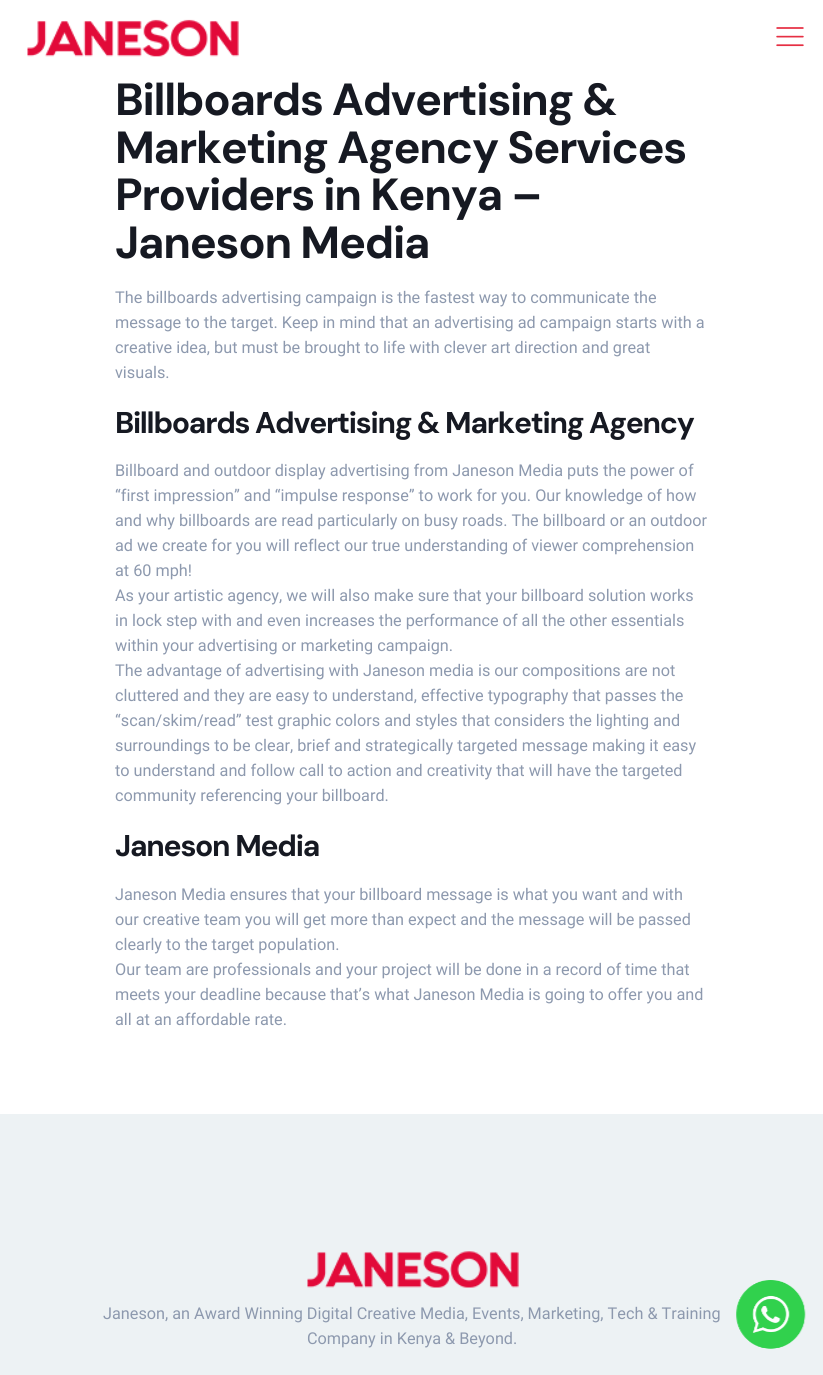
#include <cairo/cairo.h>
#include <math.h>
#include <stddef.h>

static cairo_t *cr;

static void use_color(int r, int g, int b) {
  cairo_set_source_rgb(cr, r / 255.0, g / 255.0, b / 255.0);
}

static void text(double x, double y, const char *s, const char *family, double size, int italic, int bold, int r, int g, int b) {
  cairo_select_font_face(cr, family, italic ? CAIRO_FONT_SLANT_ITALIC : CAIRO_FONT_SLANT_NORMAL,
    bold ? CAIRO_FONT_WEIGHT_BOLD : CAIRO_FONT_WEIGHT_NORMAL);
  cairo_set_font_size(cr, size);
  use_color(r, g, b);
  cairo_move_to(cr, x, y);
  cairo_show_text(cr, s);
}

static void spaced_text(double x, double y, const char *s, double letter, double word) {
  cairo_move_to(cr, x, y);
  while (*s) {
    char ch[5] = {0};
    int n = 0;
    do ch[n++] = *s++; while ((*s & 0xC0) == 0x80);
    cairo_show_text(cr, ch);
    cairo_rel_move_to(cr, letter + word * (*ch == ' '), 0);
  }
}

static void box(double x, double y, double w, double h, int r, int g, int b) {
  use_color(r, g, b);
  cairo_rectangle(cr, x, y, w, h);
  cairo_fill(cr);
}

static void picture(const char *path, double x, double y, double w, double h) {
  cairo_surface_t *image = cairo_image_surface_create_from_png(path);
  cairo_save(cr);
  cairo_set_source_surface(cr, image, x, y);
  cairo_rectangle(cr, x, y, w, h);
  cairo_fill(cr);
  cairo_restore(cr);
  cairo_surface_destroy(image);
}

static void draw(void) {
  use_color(255, 255, 255);
  cairo_paint(cr);
  picture("img_01.png", 27, 19, 212, 38);
  picture("img_02.png", 776, 27, 28, 20);
  box(0, 1114, 823, 261, 237, 242, 244);
  picture("img_03.png", 307, 1251, 212, 37);
  picture("img_04.png", 736, 1280, 70, 69);
  cairo_select_font_face(cr, "DM Sans", CAIRO_FONT_SLANT_NORMAL, CAIRO_FONT_WEIGHT_BOLD);
  cairo_set_font_size(cr, 45);
  use_color(22, 25, 34);
  spaced_text(115, 115, "Billboards Advertising &", -1.25, 0);
  spaced_text(115, 163, "Marketing Agency Services", -1.25, 0);
  spaced_text(115, 210, "Providers in Kenya –", -1.25, 0);
  spaced_text(115, 258, "Janeson Media", -1.25, 0);
  text(115, 303, "The billboards advertising campaign is the fastest way to communicate the", "Roboto", 16.25, 0, 0, 141, 153, 174);
  text(115, 328, "message to the target. Keep in mind that an advertising ad campaign starts with a", "Roboto", 16.25, 0, 0, 141, 153, 174);
  text(115, 353, "creative idea, but must be brought to life with clever art direction and great", "Roboto", 16.25, 0, 0, 141, 153, 174);
  text(115, 378, "visuals.", "Roboto", 16.25, 0, 0, 141, 153, 174);
  cairo_select_font_face(cr, "DM Sans", CAIRO_FONT_SLANT_NORMAL, CAIRO_FONT_WEIGHT_BOLD);
  cairo_set_font_size(cr, 30);
  use_color(22, 25, 34);
  spaced_text(115, 433, "Billboards Advertising & Marketing Agency", -1.25, 0);
  text(115, 476, "Billboard and outdoor display advertising from Janeson Media puts the power of", "Roboto", 16.25, 0, 0, 141, 153, 174);
  text(115, 501, "“first impression” and “impulse response” to work for you. Our knowledge of how", "Roboto", 16.25, 0, 0, 141, 153, 174);
  text(115, 526, "and why billboards are read particularly on busy roads. The billboard or an outdoor", "Roboto", 16.25, 0, 0, 141, 153, 174);
  text(115, 551, "ad we create for you will reflect our true understanding of viewer comprehension", "Roboto", 16.25, 0, 0, 141, 153, 174);
  text(115, 576, "at 60 mph!", "Roboto", 16.25, 0, 0, 141, 153, 174);
  text(115, 601, "As your artistic agency, we will also make sure that your billboard solution works", "Roboto", 16.25, 0, 0, 141, 153, 174);
  text(115, 626, "in lock step with and even increases the performance of all the other essentials", "Roboto", 16.25, 0, 0, 141, 153, 174);
  text(115, 651, "within your advertising or marketing campaign.", "Roboto", 16.25, 0, 0, 141, 153, 174);
  text(115, 676, "The advantage of advertising with Janeson media is our compositions are not", "Roboto", 16.25, 0, 0, 141, 153, 174);
  text(115, 701, "cluttered and they are easy to understand, effective typography that passes the", "Roboto", 16.25, 0, 0, 141, 153, 174);
  text(115, 726, "“scan/skim/read” test graphic colors and styles that considers the lighting and", "Roboto", 16.25, 0, 0, 141, 153, 174);
  text(115, 751, "surroundings to be clear, brief and strategically targeted message making it easy", "Roboto", 16.25, 0, 0, 141, 153, 174);
  text(115, 776, "to understand and follow call to action and creativity that will have the targeted", "Roboto", 16.25, 0, 0, 141, 153, 174);
  text(115, 801, "community referencing your billboard.", "Roboto", 16.25, 0, 0, 141, 153, 174);
  cairo_select_font_face(cr, "DM Sans", CAIRO_FONT_SLANT_NORMAL, CAIRO_FONT_WEIGHT_BOLD);
  cairo_set_font_size(cr, 30);
  use_color(22, 25, 34);
  spaced_text(115, 856, "Janeson Media", -1.25, 0);
  text(115, 900, "Janeson Media ensures that your billboard message is what you want and with", "Roboto", 16.25, 0, 0, 141, 153, 174);
  text(115, 925, "our creative team you will get more than expect and the message will be passed", "Roboto", 16.25, 0, 0, 141, 153, 174);
  text(115, 950, "clearly to the target population.", "Roboto", 16.25, 0, 0, 141, 153, 174);
  text(115, 975, "Our team are professionals and your project will be done in a record of time that", "Roboto", 16.25, 0, 0, 141, 153, 174);
  text(115, 1000, "meets your deadline because that’s what Janeson Media is going to offer you and", "Roboto", 16.25, 0, 0, 141, 153, 174);
  text(115, 1025, "all at an affordable rate.", "Roboto", 16.25, 0, 0, 141, 153, 174);
  text(103, 1319, "Janeson, an Award Winning Digital Creative Media, Events, Marketing, Tech & Training", "Roboto", 16.25, 0, 0, 141, 153, 174);
  text(307, 1344, "Company in Kenya & Beyond.", "Roboto", 16.25, 0, 0, 141, 153, 174);
}

int main(void) {
  cairo_surface_t *surface = cairo_image_surface_create(CAIRO_FORMAT_RGB24, 823, 1375);
  cr = cairo_create(surface);
  cairo_font_options_t *options = cairo_font_options_create();
  cairo_font_options_set_hint_metrics(options, CAIRO_HINT_METRICS_OFF);
  cairo_font_options_set_hint_style(options, CAIRO_HINT_STYLE_NONE);
  cairo_set_font_options(cr, options);
  cairo_set_miter_limit(cr, 4);
  draw();
  cairo_surface_write_to_png(surface, "out.png");
  cairo_font_options_destroy(options);
  cairo_destroy(cr);
  cairo_surface_destroy(surface);
  return 0;
}
